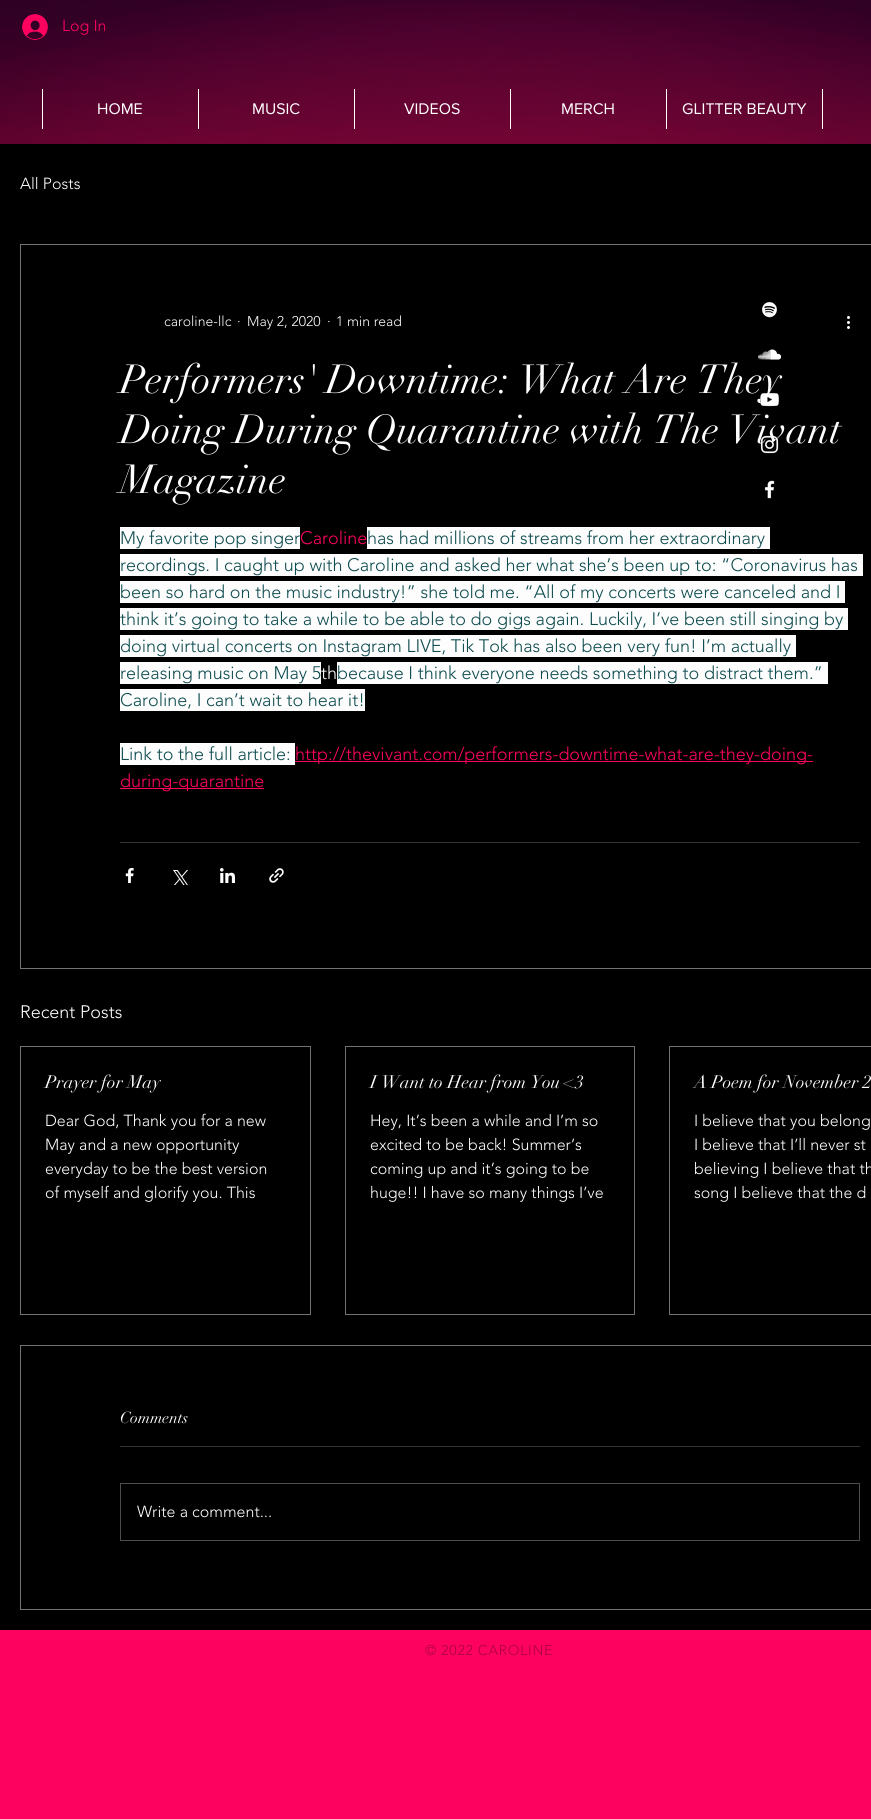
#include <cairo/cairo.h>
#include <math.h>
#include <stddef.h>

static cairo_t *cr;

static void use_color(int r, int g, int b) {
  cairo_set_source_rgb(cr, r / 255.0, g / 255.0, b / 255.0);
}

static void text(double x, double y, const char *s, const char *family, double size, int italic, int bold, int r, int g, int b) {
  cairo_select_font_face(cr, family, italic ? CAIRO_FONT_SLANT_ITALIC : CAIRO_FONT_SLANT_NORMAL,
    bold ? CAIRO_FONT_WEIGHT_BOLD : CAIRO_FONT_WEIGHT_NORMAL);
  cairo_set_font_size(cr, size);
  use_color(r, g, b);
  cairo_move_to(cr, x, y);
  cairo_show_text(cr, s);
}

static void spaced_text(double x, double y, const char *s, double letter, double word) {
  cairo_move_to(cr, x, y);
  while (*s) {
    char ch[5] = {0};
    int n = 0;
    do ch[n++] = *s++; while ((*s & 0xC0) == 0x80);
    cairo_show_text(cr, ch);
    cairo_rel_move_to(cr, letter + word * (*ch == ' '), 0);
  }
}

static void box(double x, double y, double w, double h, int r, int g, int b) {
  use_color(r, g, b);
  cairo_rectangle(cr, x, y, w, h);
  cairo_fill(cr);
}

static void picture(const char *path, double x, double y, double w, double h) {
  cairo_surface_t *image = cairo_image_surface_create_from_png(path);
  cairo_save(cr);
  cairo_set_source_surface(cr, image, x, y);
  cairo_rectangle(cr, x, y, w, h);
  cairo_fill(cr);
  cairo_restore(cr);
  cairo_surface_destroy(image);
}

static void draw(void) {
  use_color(254, 2, 96);
  cairo_paint(cr);
  picture("img_01.png", 0, 0, 871, 144);
  picture("img_02.png", 22, 14, 26, 26);
  box(42, 89, 1, 40, 255, 255, 255);
  box(198, 89, 1, 40, 255, 255, 255);
  box(354, 89, 1, 40, 255, 255, 255);
  box(510, 89, 1, 40, 255, 255, 255);
  box(666, 89, 1, 40, 255, 255, 255);
  box(822, 89, 1, 40, 255, 255, 255);
  box(0, 144, 871, 1486, 0, 0, 0);
  cairo_rectangle(cr, 20.5, 244.5, 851, 724);
  use_color(115, 115, 113);
  cairo_set_line_width(cr, 1);
  cairo_stroke(cr);
  picture("img_03.png", 847, 316, 3, 13);
  box(120, 527, 180, 22, 253, 253, 253);
  box(367, 527, 403, 22, 253, 253, 253);
  box(120, 554, 743, 22, 253, 253, 253);
  box(120, 581, 725, 22, 253, 253, 253);
  box(120, 608, 728, 22, 253, 253, 253);
  box(120, 635, 676, 22, 253, 253, 253);
  box(120, 662, 201, 22, 253, 253, 253);
  box(337, 662, 491, 22, 253, 253, 253);
  box(120, 689, 245, 22, 253, 253, 253);
  box(120, 743, 175, 22, 253, 253, 253);
  box(295, 761, 518, 1, 254, 2, 96);
  box(120, 788, 144, 1, 254, 2, 96);
  box(120, 842, 740, 1, 51, 51, 51);
  picture("img_04.png", 125, 868, 9, 15);
  picture("img_05.png", 173, 870, 15, 15);
  picture("img_06.png", 220, 868, 15, 15);
  picture("img_07.png", 269, 868, 15, 15);
  cairo_rectangle(cr, 20.5, 1046.5, 290, 268);
  use_color(115, 115, 113);
  cairo_stroke(cr);
  cairo_rectangle(cr, 345.5, 1046.5, 289, 268);
  cairo_stroke(cr);
  cairo_rectangle(cr, 669.5, 1046.5, 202, 268);
  cairo_stroke(cr);
  cairo_rectangle(cr, 20.5, 1345.5, 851, 264);
  cairo_stroke(cr);
  box(120, 1446, 740, 1, 51, 51, 51);
  cairo_rectangle(cr, 120.5, 1483.5, 739, 57);
  use_color(77, 77, 77);
  cairo_stroke(cr);
  picture("img_08.png", 762, 302, 15, 16);
  picture("img_09.png", 758, 349, 23, 11);
  picture("img_12.png", 764, 480, 11, 19);
  text(62, 31, "Log In", "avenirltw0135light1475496 Light", 16, 0, 0, 254, 2, 96);
  text(97, 114, "HOME", "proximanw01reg", 16, 0, 0, 255, 255, 255);
  text(252, 114, "MUSIC", "proximanw01reg", 16, 0, 0, 255, 255, 255);
  text(404, 114, "VIDEOS", "proximanw01reg", 16, 0, 0, 255, 255, 255);
  text(561, 114, "MERCH", "proximanw01reg", 16, 0, 0, 255, 255, 255);
  text(682, 114, "GLITTER BEAUTY", "proximanw01reg", 16, 0, 0, 255, 255, 255);
  text(20, 189, "All Posts", "avenirltw0135light1475496 Light", 16, 0, 0, 255, 255, 255);
  text(164, 326, "caroline-llc", "avenirltw0135light1475496 Light", 14, 0, 0, 255, 255, 255);
  text(237, 326, "·", "avenirltw0135light1475496 Light", 14, 0, 0, 255, 255, 255);
  text(247, 326, "May 2, 2020", "avenirltw0135light1475496 Light", 14, 0, 0, 255, 255, 255);
  text(327, 326, "·", "avenirltw0135light1475496 Light", 14, 0, 0, 255, 255, 255);
  text(336, 326, "1 min read", "avenirltw0135light1475496 Light", 14, 0, 0, 255, 255, 255);
  text(120, 393, "Performers' Downtime: What Are They", "didot", 40, 0, 0, 255, 255, 255);
  text(120, 443, "Doing During Quarantine with The Vivant", "didot", 40, 0, 0, 255, 255, 255);
  text(120, 493, "Magazine", "didot", 40, 0, 0, 255, 255, 255);
  text(120, 544, "My favorite pop singer", "avenirltw0135light1475496 Light", 18, 0, 0, 14, 76, 79);
  text(300, 544, "Caroline", "avenirltw0135light1475496 Light", 18, 0, 0, 254, 2, 96);
  text(367, 544, "has had millions of streams from her extraordinary", "avenirltw0135light1475496 Light", 18, 0, 0, 14, 76, 79);
  text(120, 571, "recordings. I caught up with Caroline and asked her what she’s been up to: “Coronavirus has", "avenirltw0135light1475496 Light", 18, 0, 0, 14, 76, 79);
  text(120, 598, "been so hard on the music industry!” she told me. “All of my concerts were canceled and I", "avenirltw0135light1475496 Light", 18, 0, 0, 14, 76, 79);
  text(120, 625, "think it’s going to take a while to be able to do gigs again. Luckily, I’ve been still singing by", "avenirltw0135light1475496 Light", 18, 0, 0, 14, 76, 79);
  text(120, 652, "doing virtual concerts on Instagram LIVE, Tik Tok has also been very fun! I’m actually", "avenirltw0135light1475496 Light", 18, 0, 0, 14, 76, 79);
  text(120, 679, "releasing music on May 5", "avenirltw0135light1475496 Light", 18, 0, 0, 14, 76, 79);
  text(321, 679, "th", "avenirltw0135light1475496 Light", 18, 0, 0, 255, 255, 255);
  text(337, 679, "because I think everyone needs something to distract them.”", "avenirltw0135light1475496 Light", 18, 0, 0, 14, 76, 79);
  text(120, 706, "Caroline, I can’t wait to hear it!", "avenirltw0135light1475496 Light", 18, 0, 0, 14, 76, 79);
  text(120, 760, "Link to the full article:", "avenirltw0135light1475496 Light", 18, 0, 0, 14, 76, 79);
  text(295, 760, "http://thevivant.com/performers-downtime-what-are-they-doing-", "avenirltw0135light1475496 Light", 18, 0, 0, 254, 2, 96);
  text(120, 787, "during-quarantine", "avenirltw0135light1475496 Light", 18, 0, 0, 254, 2, 96);
  text(20, 1018, "Recent Posts", "avenirltw0135light1475496 Light", 18, 0, 0, 255, 255, 255);
  text(45, 1088, "Prayer for May", "didot", 18, 0, 0, 255, 255, 255);
  text(45, 1126, "Dear God, Thank you for a new", "avenirltw0135light1475496 Light", 16, 0, 0, 255, 255, 255);
  text(45, 1150, "May and a new opportunity", "avenirltw0135light1475496 Light", 16, 0, 0, 255, 255, 255);
  text(45, 1174, "everyday to be the best version", "avenirltw0135light1475496 Light", 16, 0, 0, 255, 255, 255);
  text(45, 1198, "of myself and glorify you. This", "avenirltw0135light1475496 Light", 16, 0, 0, 255, 255, 255);
  text(370, 1088, "I Want to Hear from You <3", "didot", 18, 0, 0, 255, 255, 255);
  text(370, 1126, "Hey, It’s been a while and I’m so", "avenirltw0135light1475496 Light", 16, 0, 0, 255, 255, 255);
  text(370, 1150, "excited to be back! Summer’s", "avenirltw0135light1475496 Light", 16, 0, 0, 255, 255, 255);
  text(370, 1174, "coming up and it’s going to be", "avenirltw0135light1475496 Light", 16, 0, 0, 255, 255, 255);
  text(370, 1198, "huge!! I have so many things I’ve", "avenirltw0135light1475496 Light", 16, 0, 0, 255, 255, 255);
  text(694, 1088, "A Poem for November 2", "didot", 18, 0, 0, 255, 255, 255);
  text(694, 1126, "I believe that you belong", "avenirltw0135light1475496 Light", 16, 0, 0, 255, 255, 255);
  text(694, 1150, "I believe that I’ll never st", "avenirltw0135light1475496 Light", 16, 0, 0, 255, 255, 255);
  text(694, 1174, "believing I believe that th", "avenirltw0135light1475496 Light", 16, 0, 0, 255, 255, 255);
  text(694, 1198, "song I believe that the d", "avenirltw0135light1475496 Light", 16, 0, 0, 255, 255, 255);
  text(120, 1423, "Comments", "didot", 16, 0, 0, 255, 255, 255);
  text(137, 1517, "Write a comment...", "avenirltw0135light1475496 Light", 16, 0, 0, 255, 255, 255);
  picture("img_10.png", 760, 393, 19, 14);
  picture("img_11.png", 760, 435, 19, 19);
  cairo_set_font_size(cr, 14);
  use_color(169, 1, 64);
  spaced_text(425, 1655, "© 2022 CAROLINE", 0.75, 0);
}

int main(void) {
  cairo_surface_t *surface = cairo_image_surface_create(CAIRO_FORMAT_RGB24, 871, 1819);
  cr = cairo_create(surface);
  cairo_font_options_t *options = cairo_font_options_create();
  cairo_font_options_set_hint_metrics(options, CAIRO_HINT_METRICS_OFF);
  cairo_font_options_set_hint_style(options, CAIRO_HINT_STYLE_NONE);
  cairo_set_font_options(cr, options);
  cairo_set_miter_limit(cr, 4);
  draw();
  cairo_surface_write_to_png(surface, "out.png");
  cairo_font_options_destroy(options);
  cairo_destroy(cr);
  cairo_surface_destroy(surface);
  return 0;
}
